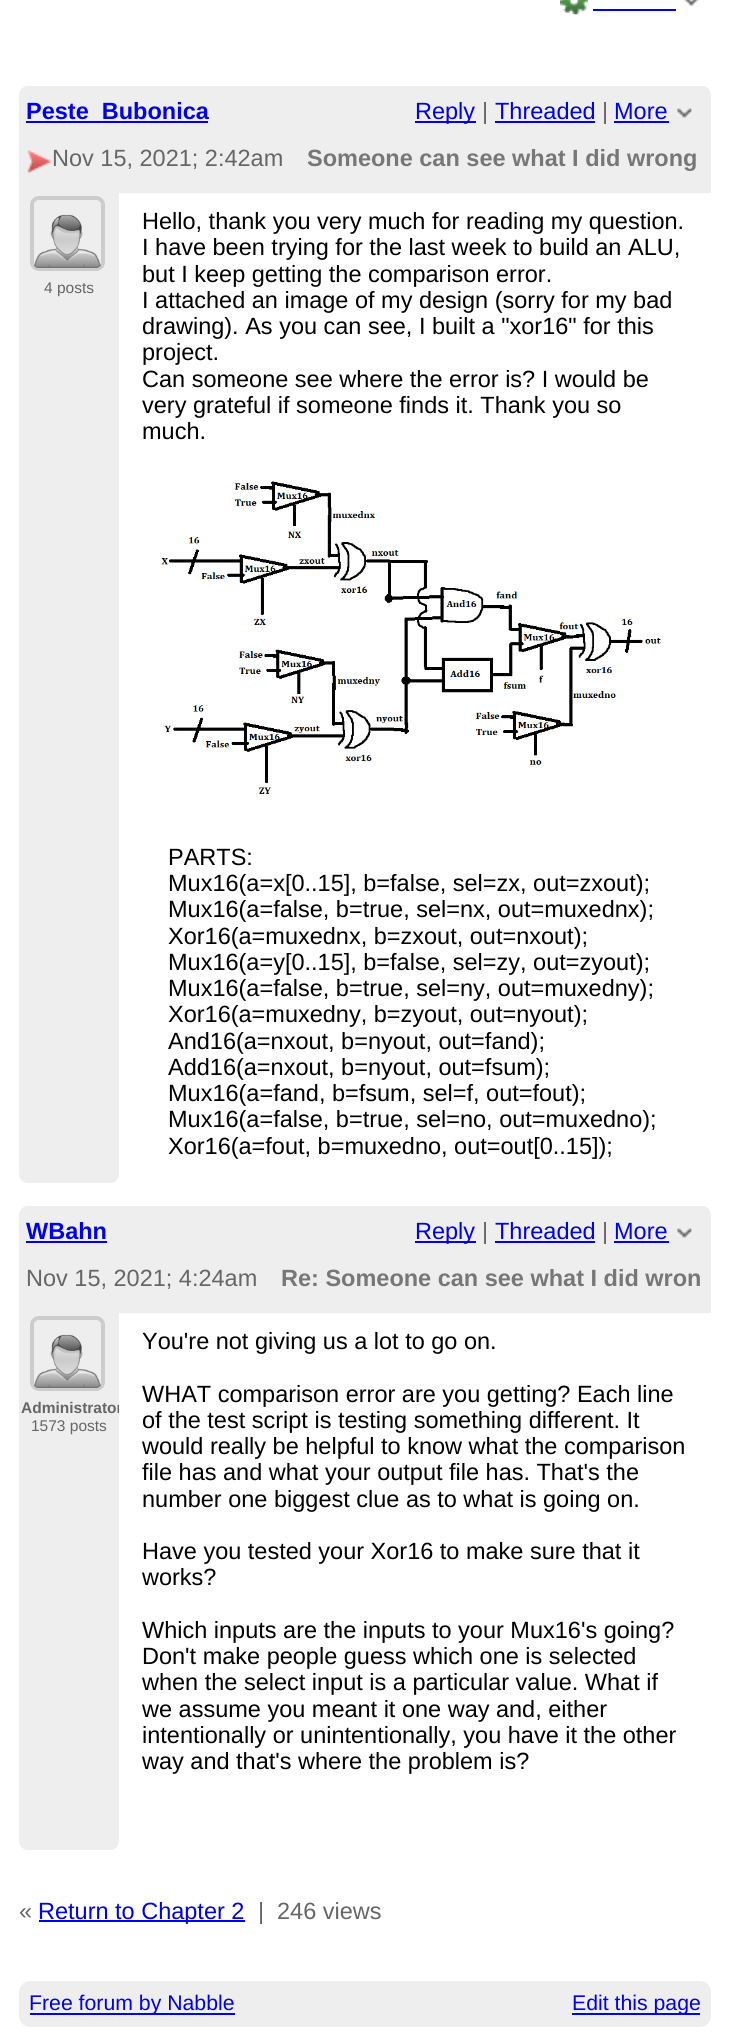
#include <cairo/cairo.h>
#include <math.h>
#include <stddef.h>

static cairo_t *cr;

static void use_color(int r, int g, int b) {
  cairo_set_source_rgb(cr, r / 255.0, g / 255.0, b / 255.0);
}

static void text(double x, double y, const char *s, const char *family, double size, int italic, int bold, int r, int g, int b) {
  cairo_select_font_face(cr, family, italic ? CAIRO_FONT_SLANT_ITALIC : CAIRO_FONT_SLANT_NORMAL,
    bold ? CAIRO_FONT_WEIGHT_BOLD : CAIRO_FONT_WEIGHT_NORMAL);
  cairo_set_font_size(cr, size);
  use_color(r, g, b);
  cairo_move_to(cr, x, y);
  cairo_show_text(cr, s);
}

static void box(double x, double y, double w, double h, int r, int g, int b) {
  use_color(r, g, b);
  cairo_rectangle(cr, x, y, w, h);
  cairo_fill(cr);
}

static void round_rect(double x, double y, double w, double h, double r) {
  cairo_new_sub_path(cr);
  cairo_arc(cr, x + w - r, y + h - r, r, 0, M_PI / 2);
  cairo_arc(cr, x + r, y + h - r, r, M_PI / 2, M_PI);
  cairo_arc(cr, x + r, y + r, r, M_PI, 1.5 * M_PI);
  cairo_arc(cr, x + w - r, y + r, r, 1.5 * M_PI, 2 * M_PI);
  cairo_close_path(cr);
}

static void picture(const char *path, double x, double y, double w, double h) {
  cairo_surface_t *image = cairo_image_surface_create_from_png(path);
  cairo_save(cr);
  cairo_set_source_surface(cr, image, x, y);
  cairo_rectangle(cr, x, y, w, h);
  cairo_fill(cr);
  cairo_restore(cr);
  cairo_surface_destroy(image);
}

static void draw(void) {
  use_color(255, 255, 255);
  cairo_paint(cr);
  picture("img_01.png", 560, 0, 28, 15);
  picture("img_02.png", 684, 0, 15, 6);
  box(593, 9, 83, 2, 0, 0, 238);
  use_color(238, 238, 238);
  cairo_new_path(cr);
  cairo_move_to(cr, 28, 86);
  cairo_line_to(cr, 702, 86);
  cairo_curve_to(cr, 707, 86, 711, 90, 711, 95);
  cairo_line_to(cr, 711, 193);
  cairo_line_to(cr, 19, 193);
  cairo_line_to(cr, 19, 95);
  cairo_curve_to(cr, 19, 90, 23, 86, 28, 86);
  cairo_close_path(cr);
  cairo_fill(cr);
  box(26, 121, 182, 2, 0, 0, 238);
  box(415, 121, 61, 2, 0, 0, 238);
  box(495, 121, 100, 2, 0, 0, 238);
  box(614, 121, 55, 2, 0, 0, 238);
  picture("img_03.png", 677, 108, 16, 11);
  picture("img_04.png", 27, 150, 25, 24);
  use_color(238, 238, 238);
  cairo_new_path(cr);
  cairo_move_to(cr, 19, 186);
  cairo_line_to(cr, 119, 186);
  cairo_line_to(cr, 119, 1174);
  cairo_curve_to(cr, 119, 1179, 115, 1183, 110, 1183);
  cairo_line_to(cr, 28, 1183);
  cairo_curve_to(cr, 23, 1183, 19, 1179, 19, 1174);
  cairo_close_path(cr);
  cairo_fill(cr);
  round_rect(32, 198, 71, 71, 7);
  use_color(204, 204, 204);
  cairo_set_line_width(cr, 4);
  cairo_stroke(cr);
  picture("img_05.png", 34, 214, 67, 54);
  picture("img_06.png", 161, 481, 500, 313);
  use_color(238, 238, 238);
  cairo_new_path(cr);
  cairo_move_to(cr, 28, 1206);
  cairo_line_to(cr, 702, 1206);
  cairo_curve_to(cr, 707, 1206, 711, 1210, 711, 1215);
  cairo_line_to(cr, 711, 1313);
  cairo_line_to(cr, 19, 1313);
  cairo_line_to(cr, 19, 1215);
  cairo_curve_to(cr, 19, 1210, 23, 1206, 28, 1206);
  cairo_close_path(cr);
  cairo_fill(cr);
  box(26, 1241, 81, 2, 0, 0, 238);
  box(415, 1241, 61, 2, 0, 0, 238);
  box(495, 1241, 100, 2, 0, 0, 238);
  box(614, 1241, 55, 2, 0, 0, 238);
  picture("img_03.png", 677, 1228, 16, 11);
  use_color(238, 238, 238);
  cairo_new_path(cr);
  cairo_move_to(cr, 19, 1306);
  cairo_line_to(cr, 119, 1306);
  cairo_line_to(cr, 119, 1841);
  cairo_curve_to(cr, 119, 1846, 115, 1850, 110, 1850);
  cairo_line_to(cr, 28, 1850);
  cairo_curve_to(cr, 23, 1850, 19, 1846, 19, 1841);
  cairo_close_path(cr);
  cairo_fill(cr);
  round_rect(32, 1318, 71, 71, 7);
  use_color(204, 204, 204);
  cairo_stroke(cr);
  picture("img_05.png", 34, 1334, 67, 54);
  box(39, 1920, 206, 2, 0, 0, 238);
  use_color(238, 238, 238);
  round_rect(19, 1981, 692, 46, 11);
  cairo_fill(cr);
  box(30, 2013, 205, 2, 0, 0, 238);
  box(572, 2013, 128, 2, 0, 0, 238);
  text(26, 119, "Peste_Bubonica", "Liberation Sans", 23.5, 0, 1, 0, 0, 238);
  text(415, 119, "Reply", "Liberation Sans", 23.5, 0, 0, 0, 0, 238);
  text(482, 119, "|", "Liberation Sans", 23.5, 0, 0, 102, 102, 102);
  text(495, 119, "Threaded", "Liberation Sans", 23.5, 0, 0, 0, 0, 238);
  text(602, 119, "|", "Liberation Sans", 23.5, 0, 0, 102, 102, 102);
  text(614, 119, "More", "Liberation Sans", 23.5, 0, 0, 0, 0, 238);
  text(52, 166, "Nov 15, 2021; 2:42am", "Liberation Sans", 23.5, 0, 0, 102, 102, 102);
  text(307, 166, "Someone can see what I did wrong", "Liberation Sans", 23.5, 0, 1, 119, 119, 119);
  text(44, 293, "4 posts", "Liberation Sans", 15.5, 0, 0, 102, 102, 102);
  text(142, 229, "Hello, thank you very much for reading my question.", "Liberation Sans", 23.5, 0, 0, 0, 0, 0);
  text(142, 255, "I have been trying for the last week to build an ALU,", "Liberation Sans", 23.5, 0, 0, 0, 0, 0);
  text(142, 282, "but I keep getting the comparison error.", "Liberation Sans", 23.5, 0, 0, 0, 0, 0);
  text(142, 308, "I attached an image of my design (sorry for my bad", "Liberation Sans", 23.5, 0, 0, 0, 0, 0);
  text(142, 334, "drawing). As you can see, I built a \"xor16\" for this", "Liberation Sans", 23.5, 0, 0, 0, 0, 0);
  text(142, 360, "project.", "Liberation Sans", 23.5, 0, 0, 0, 0, 0);
  text(142, 387, "Can someone see where the error is? I would be", "Liberation Sans", 23.5, 0, 0, 0, 0, 0);
  text(142, 413, "very grateful if someone finds it. Thank you so", "Liberation Sans", 23.5, 0, 0, 0, 0, 0);
  text(142, 439, "much.", "Liberation Sans", 23.5, 0, 0, 0, 0, 0);
  text(168, 865, "PARTS:", "Liberation Sans", 23.5, 0, 0, 0, 0, 0);
  text(168, 891, "Mux16(a=x[0..15], b=false, sel=zx, out=zxout);", "Liberation Sans", 23.5, 0, 0, 0, 0, 0);
  text(168, 917, "Mux16(a=false, b=true, sel=nx, out=muxednx);", "Liberation Sans", 23.5, 0, 0, 0, 0, 0);
  text(168, 944, "Xor16(a=muxednx, b=zxout, out=nxout);", "Liberation Sans", 23.5, 0, 0, 0, 0, 0);
  text(168, 970, "Mux16(a=y[0..15], b=false, sel=zy, out=zyout);", "Liberation Sans", 23.5, 0, 0, 0, 0, 0);
  text(168, 996, "Mux16(a=false, b=true, sel=ny, out=muxedny);", "Liberation Sans", 23.5, 0, 0, 0, 0, 0);
  text(168, 1022, "Xor16(a=muxedny, b=zyout, out=nyout);", "Liberation Sans", 23.5, 0, 0, 0, 0, 0);
  text(168, 1049, "And16(a=nxout, b=nyout, out=fand);", "Liberation Sans", 23.5, 0, 0, 0, 0, 0);
  text(168, 1075, "Add16(a=nxout, b=nyout, out=fsum);", "Liberation Sans", 23.5, 0, 0, 0, 0, 0);
  text(168, 1101, "Mux16(a=fand, b=fsum, sel=f, out=fout);", "Liberation Sans", 23.5, 0, 0, 0, 0, 0);
  text(168, 1127, "Mux16(a=false, b=true, sel=no, out=muxedno);", "Liberation Sans", 23.5, 0, 0, 0, 0, 0);
  text(168, 1154, "Xor16(a=fout, b=muxedno, out=out[0..15]);", "Liberation Sans", 23.5, 0, 0, 0, 0, 0);
  text(26, 1239, "WBahn", "Liberation Sans", 23.5, 0, 1, 0, 0, 238);
  text(415, 1239, "Reply", "Liberation Sans", 23.5, 0, 0, 0, 0, 238);
  text(482, 1239, "|", "Liberation Sans", 23.5, 0, 0, 102, 102, 102);
  text(495, 1239, "Threaded", "Liberation Sans", 23.5, 0, 0, 0, 0, 238);
  text(602, 1239, "|", "Liberation Sans", 23.5, 0, 0, 102, 102, 102);
  text(614, 1239, "More", "Liberation Sans", 23.5, 0, 0, 0, 0, 238);
  text(26, 1286, "Nov 15, 2021; 4:24am", "Liberation Sans", 23.5, 0, 0, 102, 102, 102);
  text(281, 1286, "Re: Someone can see what I did wron", "Liberation Sans", 23.5, 0, 1, 119, 119, 119);
  cairo_save(cr);
  cairo_new_path(cr);
  cairo_move_to(cr, 19, 1306);
  cairo_line_to(cr, 119, 1306);
  cairo_line_to(cr, 119, 1841);
  cairo_curve_to(cr, 119, 1846, 115, 1850, 110, 1850);
  cairo_line_to(cr, 28, 1850);
  cairo_curve_to(cr, 23, 1850, 19, 1846, 19, 1841);
  cairo_close_path(cr);
  cairo_clip(cr);
  text(21, 1413, "Administrator", "Liberation Sans", 15.5, 0, 1, 102, 102, 102);
  cairo_restore(cr);
  text(31, 1431, "1573 posts", "Liberation Sans", 15.5, 0, 0, 102, 102, 102);
  text(142, 1349, "You're not giving us a lot to go on.", "Liberation Sans", 23.5, 0, 0, 0, 0, 0);
  text(142, 1402, "WHAT comparison error are you getting? Each line", "Liberation Sans", 23.5, 0, 0, 0, 0, 0);
  text(142, 1428, "of the test script is testing something different. It", "Liberation Sans", 23.5, 0, 0, 0, 0, 0);
  text(142, 1454, "would really be helpful to know what the comparison", "Liberation Sans", 23.5, 0, 0, 0, 0, 0);
  text(142, 1480, "file has and what your output file has. That's the", "Liberation Sans", 23.5, 0, 0, 0, 0, 0);
  text(142, 1507, "number one biggest clue as to what is going on.", "Liberation Sans", 23.5, 0, 0, 0, 0, 0);
  text(142, 1559, "Have you tested your Xor16 to make sure that it", "Liberation Sans", 23.5, 0, 0, 0, 0, 0);
  text(142, 1585, "works?", "Liberation Sans", 23.5, 0, 0, 0, 0, 0);
  text(142, 1638, "Which inputs are the inputs to your Mux16's going?", "Liberation Sans", 23.5, 0, 0, 0, 0, 0);
  text(142, 1664, "Don't make people guess which one is selected", "Liberation Sans", 23.5, 0, 0, 0, 0, 0);
  text(142, 1690, "when the select input is a particular value. What if", "Liberation Sans", 23.5, 0, 0, 0, 0, 0);
  text(142, 1717, "we assume you meant it one way and, either", "Liberation Sans", 23.5, 0, 0, 0, 0, 0);
  text(142, 1743, "intentionally or unintentionally, you have it the other", "Liberation Sans", 23.5, 0, 0, 0, 0, 0);
  text(142, 1769, "way and that's where the problem is?", "Liberation Sans", 23.5, 0, 0, 0, 0, 0);
  text(19, 1919, "«", "Liberation Sans", 23.5, 0, 0, 102, 102, 102);
  text(38, 1919, "Return to Chapter 2", "Liberation Sans", 23.5, 0, 0, 0, 0, 238);
  text(258, 1919, "|", "Liberation Sans", 23.5, 0, 0, 102, 102, 102);
  text(277, 1919, "246 views", "Liberation Sans", 23.5, 0, 0, 102, 102, 102);
  text(29, 2010, "Free forum by Nabble", "Liberation Sans", 21.25, 0, 0, 0, 0, 238);
  text(572, 2010, "Edit this page", "Liberation Sans", 21.25, 0, 0, 0, 0, 238);
}

int main(void) {
  cairo_surface_t *surface = cairo_image_surface_create(CAIRO_FORMAT_RGB24, 729, 2044);
  cr = cairo_create(surface);
  cairo_font_options_t *options = cairo_font_options_create();
  cairo_font_options_set_hint_metrics(options, CAIRO_HINT_METRICS_OFF);
  cairo_font_options_set_hint_style(options, CAIRO_HINT_STYLE_NONE);
  cairo_set_font_options(cr, options);
  cairo_set_miter_limit(cr, 4);
  draw();
  cairo_surface_write_to_png(surface, "out.png");
  cairo_font_options_destroy(options);
  cairo_destroy(cr);
  cairo_surface_destroy(surface);
  return 0;
}
